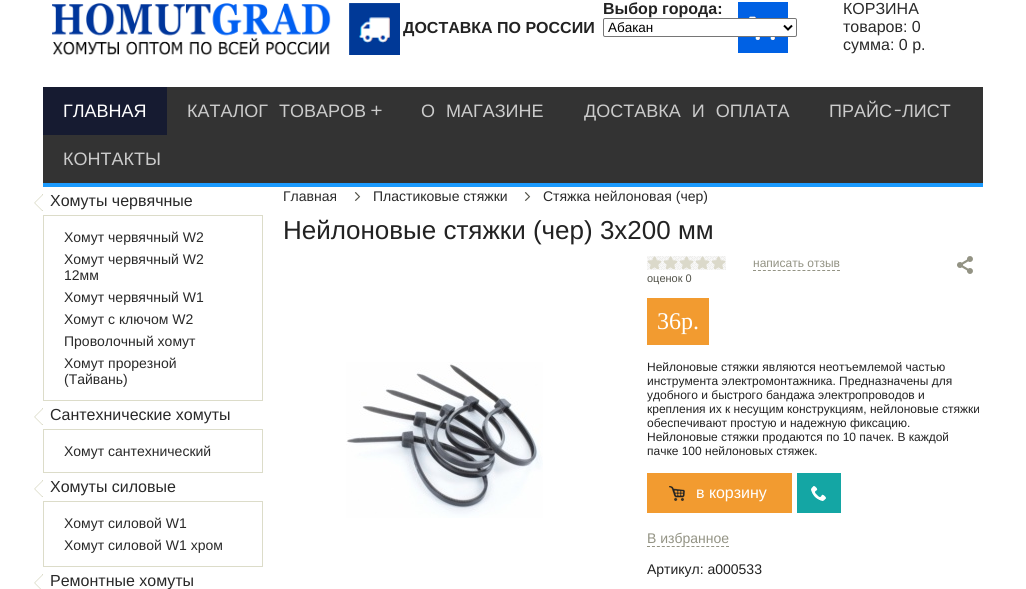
#include <cairo/cairo.h>
#include <math.h>
#include <stddef.h>

static cairo_t *cr;

static void use_color(int r, int g, int b) {
  cairo_set_source_rgb(cr, r / 255.0, g / 255.0, b / 255.0);
}

static void text(double x, double y, const char *s, const char *family, double size, int italic, int bold, int r, int g, int b) {
  cairo_select_font_face(cr, family, italic ? CAIRO_FONT_SLANT_ITALIC : CAIRO_FONT_SLANT_NORMAL,
    bold ? CAIRO_FONT_WEIGHT_BOLD : CAIRO_FONT_WEIGHT_NORMAL);
  cairo_set_font_size(cr, size);
  use_color(r, g, b);
  cairo_move_to(cr, x, y);
  cairo_show_text(cr, s);
}

static void spaced_text(double x, double y, const char *s, double letter, double word) {
  cairo_move_to(cr, x, y);
  while (*s) {
    char ch[5] = {0};
    int n = 0;
    do ch[n++] = *s++; while ((*s & 0xC0) == 0x80);
    cairo_show_text(cr, ch);
    cairo_rel_move_to(cr, letter + word * (*ch == ' '), 0);
  }
}

static void box(double x, double y, double w, double h, int r, int g, int b) {
  use_color(r, g, b);
  cairo_rectangle(cr, x, y, w, h);
  cairo_fill(cr);
}

static void round_rect(double x, double y, double w, double h, double r) {
  cairo_new_sub_path(cr);
  cairo_arc(cr, x + w - r, y + h - r, r, 0, M_PI / 2);
  cairo_arc(cr, x + r, y + h - r, r, M_PI / 2, M_PI);
  cairo_arc(cr, x + r, y + r, r, M_PI, 1.5 * M_PI);
  cairo_arc(cr, x + w - r, y + r, r, 1.5 * M_PI, 2 * M_PI);
  cairo_close_path(cr);
}

static void picture(const char *path, double x, double y, double w, double h) {
  cairo_surface_t *image = cairo_image_surface_create_from_png(path);
  cairo_save(cr);
  cairo_set_source_surface(cr, image, x, y);
  cairo_rectangle(cr, x, y, w, h);
  cairo_fill(cr);
  cairo_restore(cr);
  cairo_surface_destroy(image);
}

static void draw(void) {
  use_color(255, 255, 255);
  cairo_paint(cr);
  picture("img_01.png", 52, 3, 279, 52);
  picture("img_02.png", 349, 3, 51, 52);
  picture("img_03.png", 639, 1, 149, 57);
  use_color(255, 255, 255);
  round_rect(603.5, 18.5, 193, 18, 1.5);
  cairo_fill_preserve(cr);
  use_color(118, 118, 118);
  cairo_set_line_width(cr, 1);
  cairo_stroke(cr);
  cairo_new_path(cr);
  cairo_move_to(cr, 784, 25.5);
  cairo_line_to(cr, 788, 29.5);
  cairo_line_to(cr, 792, 25.5);
  use_color(0, 0, 0);
  cairo_set_line_width(cr, 2);
  cairo_stroke(cr);
  box(43, 87, 940, 96, 51, 51, 51);
  box(43, 183, 940, 4, 27, 155, 255);
  box(43, 87, 124, 48, 22, 27, 49);
  cairo_rectangle(cr, 43.5, 215.5, 219, 185);
  use_color(220, 220, 201);
  cairo_set_line_width(cr, 1);
  cairo_stroke(cr);
  picture("img_04.png", 34, 194, 9, 17);
  cairo_rectangle(cr, 43.5, 429.5, 219, 43);
  cairo_stroke(cr);
  picture("img_04.png", 34, 408, 9, 17);
  cairo_rectangle(cr, 43.5, 501.5, 219, 65);
  cairo_stroke(cr);
  picture("img_04.png", 34, 480, 9, 17);
  picture("img_05.png", 34, 574, 9, 15);
  picture("img_06.png", 354, 192, 7, 9);
  picture("img_06.png", 524, 192, 7, 9);
  picture("img_07.png", 346, 362, 197, 156);
  cairo_new_path(cr);
  cairo_move_to(cr, 753, 270.5);
  cairo_line_to(cr, 840, 270.5);
  use_color(147, 147, 132);
  cairo_set_dash(cr, (double[]){3, 1.94}, 2, 0);
  cairo_stroke(cr);
  picture("img_08.png", 957, 256, 16, 18);
  picture("img_09.png", 647, 256, 79, 14);
  box(647, 298, 62, 47, 242, 155, 48);
  box(647, 473, 145, 40, 242, 155, 48);
  picture("img_10.png", 669, 486, 16, 15);
  box(797, 473, 44, 40, 20, 166, 164);
  picture("img_11.png", 811, 486, 15, 15);
  cairo_new_path(cr);
  cairo_move_to(cr, 647, 546.5);
  cairo_line_to(cr, 729, 546.5);
  use_color(147, 147, 132);
  cairo_stroke(cr);
  text(403, 33, "ДОСТАВКА ПО РОССИИ", "Liberation Sans", 16, 0, 1, 34, 34, 34);
  text(603, 14, "Выбор города:", "Liberation Sans", 16, 0, 1, 34, 34, 34);
  text(608, 32, "Абакан", "Liberation Sans", 13.5, 0, 0, 0, 0, 0);
  text(843, 14, "КОРЗИНА", "Liberation Sans", 16, 0, 0, 41, 41, 41);
  text(843, 32, "товаров: 0", "Liberation Sans", 16, 0, 0, 41, 41, 41);
  text(843, 50, "сумма: 0 р.", "Liberation Sans", 16, 0, 0, 41, 41, 41);
  text(63, 117, "ГЛАВНАЯ", "Liberation Sans", 18, 0, 0, 255, 255, 255);
  use_color(203, 203, 203);
  spaced_text(187, 117, "КАТАЛОГ ТОВАРОВ", 0, 6);
  text(370, 117, "+", "Oxygen Mono", 18, 0, 0, 203, 203, 203);
  cairo_select_font_face(cr, "Liberation Sans", CAIRO_FONT_SLANT_NORMAL, CAIRO_FONT_WEIGHT_NORMAL);
  spaced_text(421, 117, "О МАГАЗИНЕ", 0, 6);
  spaced_text(584, 117, "ДОСТАВКА И ОПЛАТА", 0, 6);
  text(829, 117, "ПРАЙС", "Liberation Sans", 18, 0, 0, 203, 203, 203);
  text(892, 117, "-", "Oxygen Mono", 18, 0, 0, 203, 203, 203);
  text(902, 117, "ЛИСТ", "Liberation Sans", 18, 0, 0, 203, 203, 203);
  text(63, 165, "КОНТАКТЫ", "Liberation Sans", 18, 0, 0, 203, 203, 203);
  text(50, 206, "Хомуты червячные", "Liberation Sans", 16, 0, 0, 41, 41, 41);
  text(64, 242, "Хомут червячный W2", "Liberation Sans", 14, 0, 0, 41, 41, 41);
  text(64, 264, "Хомут червячный W2", "Liberation Sans", 14, 0, 0, 41, 41, 41);
  text(64, 280, "12мм", "Liberation Sans", 14, 0, 0, 41, 41, 41);
  text(64, 302, "Хомут червячный W1", "Liberation Sans", 14, 0, 0, 41, 41, 41);
  text(64, 324, "Хомут с ключом W2", "Liberation Sans", 14, 0, 0, 41, 41, 41);
  text(64, 346, "Проволочный хомут", "Liberation Sans", 14, 0, 0, 41, 41, 41);
  text(64, 368, "Хомут прорезной", "Liberation Sans", 14, 0, 0, 41, 41, 41);
  text(64, 384, "(Тайвань)", "Liberation Sans", 14, 0, 0, 41, 41, 41);
  text(50, 420, "Сантехнические хомуты", "Liberation Sans", 16, 0, 0, 41, 41, 41);
  text(64, 456, "Хомут сантехнический", "Liberation Sans", 14, 0, 0, 41, 41, 41);
  text(50, 492, "Хомуты силовые", "Liberation Sans", 16, 0, 0, 41, 41, 41);
  text(64, 528, "Хомут силовой W1", "Liberation Sans", 14, 0, 0, 41, 41, 41);
  text(64, 550, "Хомут силовой W1 хром", "Liberation Sans", 14, 0, 0, 41, 41, 41);
  text(50, 586, "Ремонтные хомуты", "Liberation Sans", 16, 0, 0, 41, 41, 41);
  text(283, 201, "Главная", "Liberation Sans", 14, 0, 0, 41, 41, 41);
  text(373, 201, "Пластиковые стяжки", "Liberation Sans", 14, 0, 0, 41, 41, 41);
  text(543, 201, "Стяжка нейлоновая (чер)", "Liberation Sans", 14, 0, 0, 41, 41, 41);
  text(283, 239, "Нейлоновые стяжки (чер) 3х200 мм", "Liberation Sans", 26, 0, 0, 34, 34, 34);
  text(753, 267, "написать отзыв", "Liberation Sans", 12, 0, 0, 147, 147, 132);
  text(647, 282, "оценок 0", "Liberation Sans", 11, 0, 0, 81, 81, 72);
  text(657, 329, "36р.", "Liberation Serif", 24, 0, 0, 255, 255, 255);
  text(647, 371, "Нейлоновые стяжки являются неотъемлемой частью", "Liberation Sans", 12, 0, 0, 34, 34, 34);
  text(647, 385, "инструмента электромонтажника. Предназначены для", "Liberation Sans", 12, 0, 0, 34, 34, 34);
  text(647, 399, "удобного и быстрого бандажа электропроводов и", "Liberation Sans", 12, 0, 0, 34, 34, 34);
  text(647, 413, "крепления их к несущим конструкциям, нейлоновые стяжки", "Liberation Sans", 12, 0, 0, 34, 34, 34);
  text(647, 427, "обеспечивают простую и надежную фиксацию.", "Liberation Sans", 12, 0, 0, 34, 34, 34);
  text(647, 441, "Нейлоновые стяжки продаются по 10 пачек. В каждой", "Liberation Sans", 12, 0, 0, 34, 34, 34);
  text(647, 455, "пачке 100 нейлоновых стяжек.", "Liberation Sans", 12, 0, 0, 34, 34, 34);
  text(696, 498, "в корзину", "Liberation Sans", 16, 0, 0, 255, 255, 255);
  text(647, 543, "В избранное", "Liberation Sans", 14, 0, 0, 147, 147, 132);
  text(647, 574, "Артикул: a000533", "Liberation Sans", 14, 0, 0, 34, 34, 34);
}

int main(void) {
  cairo_surface_t *surface = cairo_image_surface_create(CAIRO_FORMAT_RGB24, 1026, 589);
  cr = cairo_create(surface);
  cairo_font_options_t *options = cairo_font_options_create();
  cairo_font_options_set_hint_metrics(options, CAIRO_HINT_METRICS_OFF);
  cairo_font_options_set_hint_style(options, CAIRO_HINT_STYLE_NONE);
  cairo_set_font_options(cr, options);
  cairo_set_miter_limit(cr, 4);
  draw();
  cairo_surface_write_to_png(surface, "out.png");
  cairo_font_options_destroy(options);
  cairo_destroy(cr);
  cairo_surface_destroy(surface);
  return 0;
}
